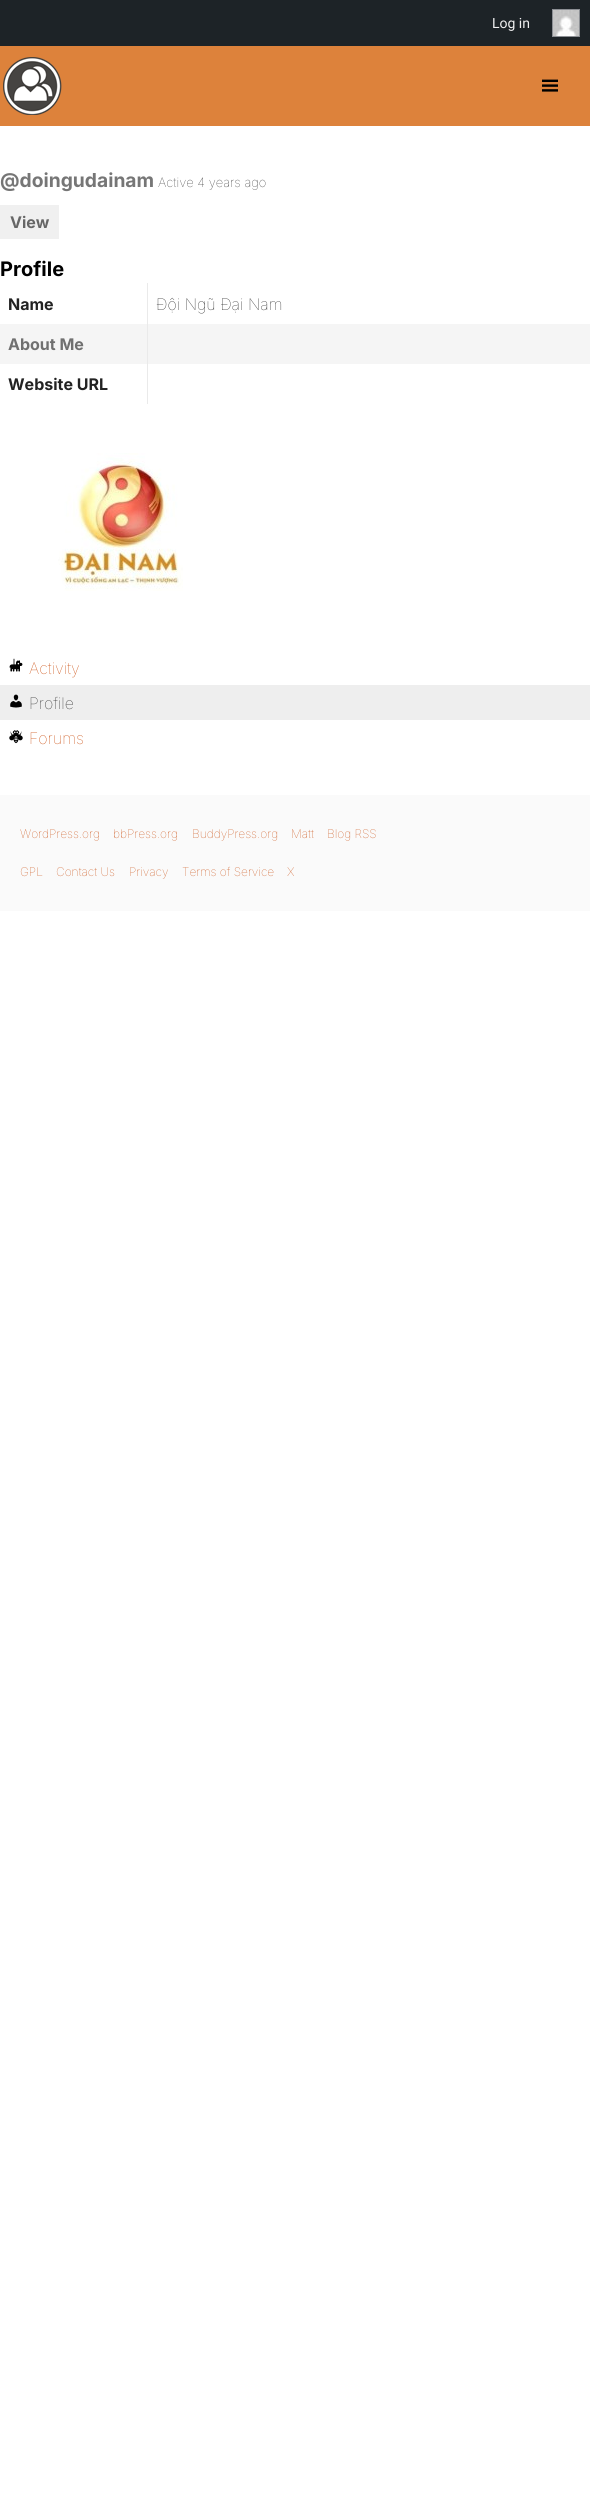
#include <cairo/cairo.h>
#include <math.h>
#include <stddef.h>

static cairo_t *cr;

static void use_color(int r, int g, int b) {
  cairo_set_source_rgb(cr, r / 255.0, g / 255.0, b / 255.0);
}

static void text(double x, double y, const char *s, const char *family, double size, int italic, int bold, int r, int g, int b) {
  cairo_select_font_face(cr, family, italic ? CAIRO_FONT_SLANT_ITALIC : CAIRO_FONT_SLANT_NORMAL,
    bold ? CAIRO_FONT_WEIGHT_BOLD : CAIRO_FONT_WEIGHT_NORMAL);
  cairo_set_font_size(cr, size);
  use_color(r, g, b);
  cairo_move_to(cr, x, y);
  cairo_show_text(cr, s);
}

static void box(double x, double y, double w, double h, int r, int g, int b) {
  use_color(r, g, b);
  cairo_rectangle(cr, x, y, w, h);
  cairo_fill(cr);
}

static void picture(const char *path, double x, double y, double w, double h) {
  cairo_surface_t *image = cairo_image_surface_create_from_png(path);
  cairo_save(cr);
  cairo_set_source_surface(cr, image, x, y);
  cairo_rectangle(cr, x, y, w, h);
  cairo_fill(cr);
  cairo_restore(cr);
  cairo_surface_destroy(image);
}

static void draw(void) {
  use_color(255, 255, 255);
  cairo_paint(cr);
  box(0, 0, 590, 46, 29, 35, 39);
  cairo_rectangle(cr, 552.5, 9.5, 27, 27);
  use_color(140, 143, 148);
  cairo_set_line_width(cr, 1);
  cairo_stroke(cr);
  picture("img_01.png", 553, 10, 26, 26);
  box(0, 46, 590, 80, 221, 130, 59);
  picture("img_02.png", 3, 57, 59, 58);
  picture("img_03.png", 542, 79, 16, 13);
  box(0, 205, 59, 34, 240, 240, 240);
  box(0, 324, 147, 40, 245, 245, 245);
  box(148, 324, 442, 40, 245, 245, 245);
  box(147, 283, 1, 121, 234, 234, 234);
  picture("img_04.png", 58, 453, 125, 138);
  picture("img_05.png", 9, 658, 14, 14);
  box(0, 685, 590, 35, 238, 238, 238);
  picture("img_06.png", 10, 694, 12, 14);
  picture("img_07.png", 9, 730, 14, 14);
  box(0, 795, 590, 116, 250, 250, 250);
  text(492, 28, "Log in", "Roboto", 14, 0, 0, 240, 240, 241);
  text(0, 187, "@doingudainam", "Inter", 19.25, 0, 1, 118, 118, 118);
  text(158, 187, "Active 4 years ago", "Inter Thin", 13, 0, 0, 34, 34, 34);
  text(10, 228, "View", "Inter", 16, 0, 1, 102, 102, 102);
  text(0, 276, "Profile", "Inter", 20, 0, 1, 0, 0, 0);
  text(8, 310, "Name", "Inter", 16, 0, 1, 34, 34, 34);
  text(156, 310, "Đội Ngũ Đại Nam", "Inter Thin", 16, 0, 0, 34, 34, 34);
  text(8, 350, "About Me", "Inter", 16, 0, 1, 112, 112, 112);
  text(8, 390, "Website URL", "Inter", 16, 0, 1, 34, 34, 34);
  text(29, 674, "Activity", "Inter Thin", 16, 0, 0, 199, 66, 0);
  text(29, 709, "Profile", "Inter Thin", 16, 0, 0, 34, 34, 34);
  text(29, 744, "Forums", "Inter Thin", 16, 0, 0, 199, 66, 0);
  text(20, 838, "WordPress.org", "Inter Thin", 12, 0, 0, 199, 66, 0);
  text(113, 838, "bbPress.org", "Inter Thin", 12, 0, 0, 199, 66, 0);
  text(192, 838, "BuddyPress.org", "Inter Thin", 12, 0, 0, 199, 66, 0);
  text(291, 838, "Matt", "Inter Thin", 12, 0, 0, 199, 66, 0);
  text(327, 838, "Blog RSS", "Inter Thin", 12, 0, 0, 199, 66, 0);
  text(20, 876, "GPL", "Inter Thin", 12, 0, 0, 199, 66, 0);
  text(56, 876, "Contact Us", "Inter Thin", 12, 0, 0, 199, 66, 0);
  text(129, 876, "Privacy", "Inter Thin", 12, 0, 0, 199, 66, 0);
  text(182, 876, "Terms of Service", "Inter Thin", 12, 0, 0, 199, 66, 0);
  text(287, 876, "X", "Inter Thin", 12, 0, 0, 199, 66, 0);
}

int main(void) {
  cairo_surface_t *surface = cairo_image_surface_create(CAIRO_FORMAT_RGB24, 590, 2500);
  cr = cairo_create(surface);
  cairo_font_options_t *options = cairo_font_options_create();
  cairo_font_options_set_hint_metrics(options, CAIRO_HINT_METRICS_OFF);
  cairo_font_options_set_hint_style(options, CAIRO_HINT_STYLE_NONE);
  cairo_set_font_options(cr, options);
  cairo_set_miter_limit(cr, 4);
  draw();
  cairo_surface_write_to_png(surface, "out.png");
  cairo_font_options_destroy(options);
  cairo_destroy(cr);
  cairo_surface_destroy(surface);
  return 0;
}
